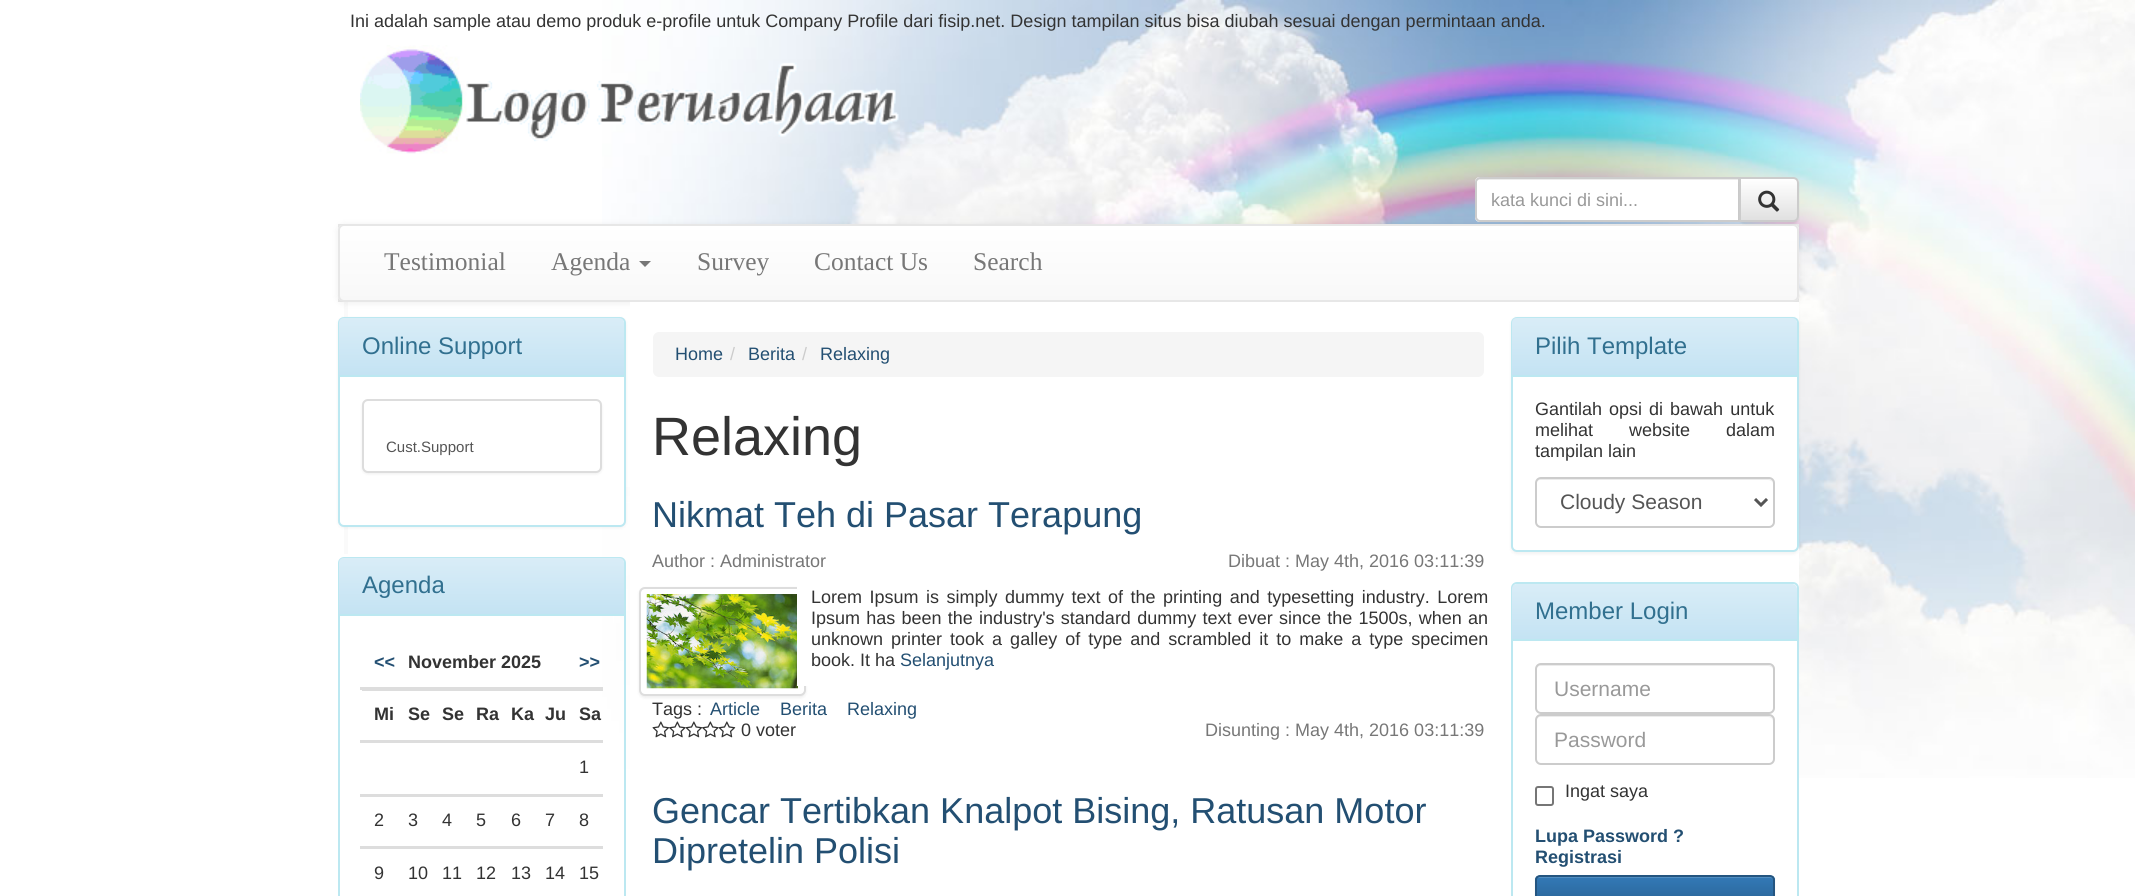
#include <cairo/cairo.h>
#include <math.h>
#include <stddef.h>

static cairo_t *cr;

static void use_color(int r, int g, int b) {
  cairo_set_source_rgb(cr, r / 255.0, g / 255.0, b / 255.0);
}

static void text(double x, double y, const char *s, const char *family, double size, int italic, int bold, int r, int g, int b) {
  cairo_select_font_face(cr, family, italic ? CAIRO_FONT_SLANT_ITALIC : CAIRO_FONT_SLANT_NORMAL,
    bold ? CAIRO_FONT_WEIGHT_BOLD : CAIRO_FONT_WEIGHT_NORMAL);
  cairo_set_font_size(cr, size);
  use_color(r, g, b);
  cairo_move_to(cr, x, y);
  cairo_show_text(cr, s);
}

static void spaced_text(double x, double y, const char *s, double letter, double word) {
  cairo_move_to(cr, x, y);
  while (*s) {
    char ch[5] = {0};
    int n = 0;
    do ch[n++] = *s++; while ((*s & 0xC0) == 0x80);
    cairo_show_text(cr, ch);
    cairo_rel_move_to(cr, letter + word * (*ch == ' '), 0);
  }
}

static void box(double x, double y, double w, double h, int r, int g, int b) {
  use_color(r, g, b);
  cairo_rectangle(cr, x, y, w, h);
  cairo_fill(cr);
}

static void round_rect(double x, double y, double w, double h, double r) {
  cairo_new_sub_path(cr);
  cairo_arc(cr, x + w - r, y + h - r, r, 0, M_PI / 2);
  cairo_arc(cr, x + r, y + h - r, r, M_PI / 2, M_PI);
  cairo_arc(cr, x + r, y + r, r, M_PI, 1.5 * M_PI);
  cairo_arc(cr, x + w - r, y + r, r, 1.5 * M_PI, 2 * M_PI);
  cairo_close_path(cr);
}

static void shadow(double x, double y, double w, double h, double r, double blur, double alpha) {
  cairo_push_group_with_content(cr, CAIRO_CONTENT_ALPHA);
  cairo_set_operator(cr, CAIRO_OPERATOR_SOURCE);
  for (int i = 15; i >= -15 && fmin(w, h) + blur * i / 3 > 0; i -= 2) {
    double e = blur * i / 6;
    cairo_set_source_rgba(cr, 0, 0, 0, alpha * erfc((i - 1) / 8.5) / 2);
    round_rect(x - e, y - e, w + 2 * e, h + 2 * e, fmax(0, fmin(r + e + blur * .6, fmin(w, h) / 2 + e)));
    cairo_fill(cr);
  }
  cairo_pattern_t *soft = cairo_pop_group(cr);
  cairo_mask(cr, soft);
  cairo_pattern_destroy(soft);
}

static void picture(const char *path, double x, double y, double w, double h) {
  cairo_surface_t *image = cairo_image_surface_create_from_png(path);
  cairo_save(cr);
  cairo_set_source_surface(cr, image, x, y);
  cairo_rectangle(cr, x, y, w, h);
  cairo_fill(cr);
  cairo_restore(cr);
  cairo_surface_destroy(image);
}

static void draw(void) {
  cairo_pattern_t *gradient;
  use_color(255, 255, 255);
  cairo_paint(cr);
  picture("img_01.png", 602, 0, 1533, 778);
  picture("img_02.png", 360, 45, 539, 109);
  box(344, 301, 4, 253, 250, 250, 250);
  box(338, 224, 1461, 78, 233, 233, 233);
  box(602, 302, 28, 185, 255, 255, 255);
  use_color(0, 0, 0);
  shadow(338, 225, 1461, 78, 6, 4, 0.07);
  use_color(255, 255, 255);
  cairo_new_path(cr);
  cairo_move_to(cr, 1480, 177);
  cairo_line_to(cr, 1740, 177);
  cairo_line_to(cr, 1740, 222);
  cairo_line_to(cr, 1480, 222);
  cairo_curve_to(cr, 1477, 222, 1475, 220, 1475, 217);
  cairo_line_to(cr, 1475, 182);
  cairo_curve_to(cr, 1475, 179, 1477, 177, 1480, 177);
  cairo_close_path(cr);
  cairo_fill(cr);
  use_color(236, 236, 236);
  cairo_new_path(cr);
  cairo_move_to(cr, 1479, 180);
  cairo_line_to(cr, 1738, 180);
  cairo_line_to(cr, 1738, 221);
  cairo_line_to(cr, 1739, 221);
  cairo_line_to(cr, 1739, 179);
  cairo_line_to(cr, 1479, 179);
  cairo_curve_to(cr, 1477, 179, 1476, 180, 1476, 182);
  cairo_line_to(cr, 1476, 183);
  cairo_curve_to(cr, 1476, 181, 1477, 180, 1479, 180);
  cairo_close_path(cr);
  cairo_fill(cr);
  cairo_new_path(cr);
  cairo_move_to(cr, 1480, 178);
  cairo_line_to(cr, 1739, 178);
  cairo_line_to(cr, 1739, 221);
  cairo_line_to(cr, 1480, 221);
  cairo_curve_to(cr, 1478, 221, 1476, 219, 1476, 217);
  cairo_line_to(cr, 1476, 182);
  cairo_curve_to(cr, 1476, 180, 1478, 178, 1480, 178);
  cairo_close_path(cr);
  use_color(204, 204, 204);
  cairo_stroke(cr);
  cairo_save(cr);
  round_rect(338, 224, 1461, 78, 6);
  cairo_clip(cr);
  gradient = cairo_pattern_create_linear(1068, 225, 1068, 300);
  cairo_pattern_add_color_stop_rgba(gradient, 0, 1, 1, 1, 1);
  cairo_pattern_add_color_stop_rgba(gradient, 1, 0.973, 0.973, 0.973, 1);
  cairo_set_source(cr, gradient);
  cairo_pattern_destroy(gradient);
  cairo_rectangle(cr, 338, 225, 1461, 75);
  cairo_fill(cr);
  cairo_restore(cr);
  round_rect(339, 225, 1459, 76, 5);
  use_color(231, 231, 231);
  cairo_stroke(cr);
  use_color(0, 0, 0);
  shadow(1739, 179, 60, 45, 6, 1, 0.07);
  cairo_save(cr);
  cairo_new_path(cr);
  cairo_move_to(cr, 1739, 177);
  cairo_line_to(cr, 1793, 177);
  cairo_curve_to(cr, 1796.5, 177, 1799, 179.5, 1799, 183);
  cairo_line_to(cr, 1799, 216);
  cairo_curve_to(cr, 1799, 219.5, 1796.5, 222, 1793, 222);
  cairo_line_to(cr, 1739, 222);
  cairo_close_path(cr);
  cairo_clip(cr);
  gradient = cairo_pattern_create_linear(1769, 179, 1769, 221);
  cairo_pattern_add_color_stop_rgba(gradient, 0, 1, 1, 1, 1);
  cairo_pattern_add_color_stop_rgba(gradient, 1, 0.878, 0.878, 0.878, 1);
  cairo_set_source(cr, gradient);
  cairo_pattern_destroy(gradient);
  cairo_rectangle(cr, 1741, 179, 58, 42);
  cairo_fill(cr);
  cairo_restore(cr);
  cairo_new_path(cr);
  cairo_move_to(cr, 1740, 178);
  cairo_line_to(cr, 1793, 178);
  cairo_curve_to(cr, 1796, 178, 1798, 180, 1798, 183);
  cairo_line_to(cr, 1798, 216);
  cairo_curve_to(cr, 1798, 219, 1796, 221, 1793, 221);
  cairo_line_to(cr, 1740, 221);
  cairo_close_path(cr);
  use_color(204, 204, 204);
  cairo_stroke(cr);
  picture("img_03.png", 1758, 190, 22, 22);
  use_color(119, 119, 119);
  cairo_new_path(cr);
  cairo_move_to(cr, 639, 261);
  cairo_line_to(cr, 651, 261);
  cairo_line_to(cr, 645, 267);
  cairo_close_path(cr);
  cairo_fill(cr);
  box(630, 302, 1169, 476, 255, 255, 255);
  use_color(0, 0, 0);
  shadow(338, 318, 288, 210, 6, 1.5, 0.05);
  use_color(255, 255, 255);
  round_rect(339, 318, 286, 208, 5);
  cairo_fill_preserve(cr);
  use_color(188, 232, 241);
  cairo_stroke(cr);
  gradient = cairo_pattern_create_linear(482, 318, 482, 375);
  cairo_pattern_add_color_stop_rgba(gradient, 0, 0.851, 0.929, 0.969, 1);
  cairo_pattern_add_color_stop_rgba(gradient, 1, 0.769, 0.89, 0.953, 1);
  cairo_set_source(cr, gradient);
  cairo_pattern_destroy(gradient);
  cairo_new_path(cr);
  cairo_move_to(cr, 344, 318);
  cairo_line_to(cr, 619, 318);
  cairo_curve_to(cr, 622, 318, 624, 320, 624, 323);
  cairo_line_to(cr, 624, 375);
  cairo_line_to(cr, 339, 375);
  cairo_line_to(cr, 339, 323);
  cairo_curve_to(cr, 339, 320, 341, 318, 344, 318);
  cairo_close_path(cr);
  cairo_fill(cr);
  box(339, 375, 285, 2, 188, 232, 241);
  use_color(0, 0, 0);
  shadow(362, 401, 240, 73, 6, 1.5, 0.07);
  use_color(255, 255, 255);
  round_rect(363, 400, 238, 72, 5);
  cairo_fill_preserve(cr);
  use_color(221, 221, 221);
  cairo_stroke(cr);
  round_rect(339, 558, 286, 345, 5);
  use_color(188, 232, 241);
  cairo_stroke(cr);
  gradient = cairo_pattern_create_linear(482, 558, 482, 614);
  cairo_pattern_add_color_stop_rgba(gradient, 0, 0.851, 0.929, 0.969, 1);
  cairo_pattern_add_color_stop_rgba(gradient, 1, 0.769, 0.89, 0.953, 1);
  cairo_set_source(cr, gradient);
  cairo_pattern_destroy(gradient);
  cairo_new_path(cr);
  cairo_move_to(cr, 344, 558);
  cairo_line_to(cr, 619, 558);
  cairo_curve_to(cr, 622, 558, 624, 560, 624, 563);
  cairo_line_to(cr, 624, 614);
  cairo_line_to(cr, 339, 614);
  cairo_line_to(cr, 339, 563);
  cairo_curve_to(cr, 339, 560, 341, 558, 344, 558);
  cairo_close_path(cr);
  cairo_fill(cr);
  box(339, 614, 285, 2, 188, 232, 241);
  box(360, 687, 243, 3, 221, 221, 221);
  box(362, 690, 241, 1, 221, 221, 221);
  box(360, 740, 243, 3, 221, 221, 221);
  box(360, 794, 243, 3, 221, 221, 221);
  box(360, 846, 243, 3, 221, 221, 221);
  use_color(245, 245, 245);
  round_rect(653, 332, 831, 45, 6);
  cairo_fill(cr);
  use_color(0, 0, 0);
  shadow(639, 588, 167, 110, 6, 1.5, 0.07);
  use_color(255, 255, 255);
  round_rect(640, 588, 165, 107, 5);
  cairo_fill_preserve(cr);
  use_color(221, 221, 221);
  cairo_stroke(cr);
  picture("img_04.png", 646, 594, 152, 95);
  box(797, 586, 11, 100, 255, 255, 255);
  picture("img_05.png", 652, 721, 18, 17);
  picture("img_06.png", 669, 721, 17, 17);
  picture("img_07.png", 685, 721, 18, 17);
  picture("img_06.png", 702, 721, 17, 17);
  picture("img_07.png", 718, 721, 18, 17);
  use_color(0, 0, 0);
  shadow(1511, 318, 288, 236, 6, 1.5, 0.05);
  use_color(255, 255, 255);
  round_rect(1512, 318, 286, 233, 5);
  cairo_fill_preserve(cr);
  use_color(188, 232, 241);
  cairo_stroke(cr);
  gradient = cairo_pattern_create_linear(1655, 318, 1655, 375);
  cairo_pattern_add_color_stop_rgba(gradient, 0, 0.851, 0.929, 0.969, 1);
  cairo_pattern_add_color_stop_rgba(gradient, 1, 0.769, 0.89, 0.953, 1);
  cairo_set_source(cr, gradient);
  cairo_pattern_destroy(gradient);
  cairo_new_path(cr);
  cairo_move_to(cr, 1517, 318);
  cairo_line_to(cr, 1792, 318);
  cairo_curve_to(cr, 1795, 318, 1797, 320, 1797, 323);
  cairo_line_to(cr, 1797, 375);
  cairo_line_to(cr, 1512, 375);
  cairo_line_to(cr, 1512, 323);
  cairo_curve_to(cr, 1512, 320, 1514, 318, 1517, 318);
  cairo_close_path(cr);
  cairo_fill(cr);
  box(1512, 375, 285, 2, 188, 232, 241);
  use_color(236, 236, 236);
  cairo_new_path(cr);
  cairo_move_to(cr, 1540, 480);
  cairo_line_to(cr, 1768, 480);
  cairo_curve_to(cr, 1771, 480, 1773, 482, 1773, 484);
  cairo_curve_to(cr, 1773, 481, 1771, 479, 1768, 479);
  cairo_line_to(cr, 1541, 479);
  cairo_curve_to(cr, 1538, 479, 1536, 481, 1536, 484);
  cairo_curve_to(cr, 1536, 482, 1538, 480, 1540, 480);
  cairo_close_path(cr);
  cairo_fill(cr);
  round_rect(1536, 478, 238, 49, 5);
  use_color(204, 204, 204);
  cairo_stroke(cr);
  cairo_new_path(cr);
  cairo_move_to(cr, 1755, 499);
  cairo_line_to(cr, 1761, 505);
  cairo_line_to(cr, 1767, 499);
  use_color(85, 85, 85);
  cairo_set_line_width(cr, 3);
  cairo_stroke(cr);
  round_rect(1512, 583, 286, 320, 5);
  use_color(188, 232, 241);
  cairo_set_line_width(cr, 2);
  cairo_stroke(cr);
  gradient = cairo_pattern_create_linear(1655, 584, 1655, 639);
  cairo_pattern_add_color_stop_rgba(gradient, 0, 0.851, 0.929, 0.969, 1);
  cairo_pattern_add_color_stop_rgba(gradient, 1, 0.769, 0.89, 0.953, 1);
  cairo_set_source(cr, gradient);
  cairo_pattern_destroy(gradient);
  cairo_new_path(cr);
  cairo_move_to(cr, 1517, 584);
  cairo_line_to(cr, 1792, 584);
  cairo_curve_to(cr, 1795, 584, 1797, 586, 1797, 589);
  cairo_line_to(cr, 1797, 639);
  cairo_line_to(cr, 1512, 639);
  cairo_line_to(cr, 1512, 589);
  cairo_curve_to(cr, 1512, 586, 1514, 584, 1517, 584);
  cairo_close_path(cr);
  cairo_fill(cr);
  box(1512, 639, 285, 2, 188, 232, 241);
  use_color(236, 236, 236);
  cairo_new_path(cr);
  cairo_move_to(cr, 1540, 666);
  cairo_line_to(cr, 1768, 666);
  cairo_curve_to(cr, 1771, 666, 1773, 668, 1773, 670);
  cairo_curve_to(cr, 1773, 667, 1771, 665, 1768, 665);
  cairo_line_to(cr, 1541, 665);
  cairo_curve_to(cr, 1538, 665, 1536, 667, 1536, 670);
  cairo_curve_to(cr, 1536, 668, 1538, 666, 1540, 666);
  cairo_close_path(cr);
  cairo_fill(cr);
  round_rect(1536, 664, 238, 49, 5);
  use_color(204, 204, 204);
  cairo_stroke(cr);
  use_color(236, 236, 236);
  cairo_new_path(cr);
  cairo_move_to(cr, 1540, 717);
  cairo_line_to(cr, 1768, 717);
  cairo_curve_to(cr, 1771, 717, 1773, 719, 1773, 722);
  cairo_line_to(cr, 1773, 721);
  cairo_curve_to(cr, 1773, 718, 1771, 716, 1768, 716);
  cairo_line_to(cr, 1541, 716);
  cairo_curve_to(cr, 1538, 716, 1536, 718, 1536, 721);
  cairo_line_to(cr, 1536, 722);
  cairo_curve_to(cr, 1536, 719, 1538, 717, 1540, 717);
  cairo_close_path(cr);
  cairo_fill(cr);
  round_rect(1536, 715, 238, 49, 5);
  use_color(204, 204, 204);
  cairo_stroke(cr);
  round_rect(1536, 787, 17, 18, 2);
  use_color(118, 118, 118);
  cairo_stroke(cr);
  use_color(0, 0, 0);
  shadow(1535, 876, 240, 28, 5, 1, 0.07);
  cairo_save(cr);
  round_rect(1535, 875, 240, 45, 5);
  cairo_clip(cr);
  gradient = cairo_pattern_create_linear(1655, 876, 1655, 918);
  cairo_pattern_add_color_stop_rgba(gradient, 0, 0.2, 0.478, 0.718, 1);
  cairo_pattern_add_color_stop_rgba(gradient, 1, 0.149, 0.353, 0.533, 1);
  cairo_set_source(cr, gradient);
  cairo_pattern_destroy(gradient);
  cairo_rectangle(cr, 1535, 876, 240, 20);
  cairo_fill(cr);
  cairo_restore(cr);
  use_color(82, 142, 193);
  cairo_new_path(cr);
  cairo_move_to(cr, 1539, 878);
  cairo_line_to(cr, 1770, 878);
  cairo_curve_to(cr, 1772, 878, 1773, 879, 1773, 880);
  cairo_curve_to(cr, 1773, 878, 1772, 876, 1770, 876);
  cairo_line_to(cr, 1539, 876);
  cairo_curve_to(cr, 1537, 876, 1536, 878, 1536, 880);
  cairo_curve_to(cr, 1536, 879, 1537, 878, 1539, 878);
  cairo_close_path(cr);
  cairo_fill(cr);
  round_rect(1536, 876, 238, 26, 4);
  use_color(36, 85, 128);
  cairo_stroke(cr);
  text(350, 27, "Ini adalah sample atau demo produk e-profile untuk Company Profile dari fisip.net. Design tampilan situs bisa diubah sesuai dengan permintaan anda.", "Liberation Sans", 18, 0, 0, 51, 51, 51);
  text(1491, 206, "kata kunci di sini...", "Liberation Sans", 18, 0, 0, 153, 153, 153);
  text(384, 270, "Testimonial", "Liberation Serif", 25.5, 0, 0, 119, 119, 119);
  text(551, 270, "Agenda", "Liberation Serif", 25.5, 0, 0, 119, 119, 119);
  text(697, 270, "Survey", "Liberation Serif", 25.5, 0, 0, 119, 119, 119);
  text(814, 270, "Contact Us", "Liberation Serif", 25.5, 0, 0, 119, 119, 119);
  text(973, 270, "Search", "Liberation Serif", 25.5, 0, 0, 119, 119, 119);
  text(362, 354, "Online Support", "Liberation Sans", 24, 0, 0, 49, 112, 143);
  text(386, 452, "Cust.Support", "Liberation Sans", 15, 0, 0, 85, 85, 85);
  text(362, 593, "Agenda", "Liberation Sans", 24, 0, 0, 49, 112, 143);
  text(374, 668, "<<", "Liberation Sans", 18, 0, 1, 35, 79, 114);
  text(408, 668, "November 2025", "Liberation Sans", 18, 0, 1, 51, 51, 51);
  text(579, 668, ">>", "Liberation Sans", 18, 0, 1, 35, 79, 114);
  text(374, 720, "Mi", "Liberation Sans", 18, 0, 1, 51, 51, 51);
  text(408, 720, "Se", "Liberation Sans", 18, 0, 1, 51, 51, 51);
  text(442, 720, "Se", "Liberation Sans", 18, 0, 1, 51, 51, 51);
  text(476, 720, "Ra", "Liberation Sans", 18, 0, 1, 51, 51, 51);
  text(511, 720, "Ka", "Liberation Sans", 18, 0, 1, 51, 51, 51);
  text(545, 720, "Ju", "Liberation Sans", 18, 0, 1, 51, 51, 51);
  text(579, 720, "Sa", "Liberation Sans", 18, 0, 1, 51, 51, 51);
  text(579, 773, "1", "Liberation Sans", 18, 0, 0, 51, 51, 51);
  text(374, 826, "2", "Liberation Sans", 18, 0, 0, 51, 51, 51);
  text(408, 826, "3", "Liberation Sans", 18, 0, 0, 51, 51, 51);
  text(442, 826, "4", "Liberation Sans", 18, 0, 0, 51, 51, 51);
  text(476, 826, "5", "Liberation Sans", 18, 0, 0, 51, 51, 51);
  text(511, 826, "6", "Liberation Sans", 18, 0, 0, 51, 51, 51);
  text(545, 826, "7", "Liberation Sans", 18, 0, 0, 51, 51, 51);
  text(579, 826, "8", "Liberation Sans", 18, 0, 0, 51, 51, 51);
  text(374, 879, "9", "Liberation Sans", 18, 0, 0, 51, 51, 51);
  text(408, 879, "10", "Liberation Sans", 18, 0, 0, 51, 51, 51);
  text(442, 879, "11", "Liberation Sans", 18, 0, 0, 51, 51, 51);
  text(476, 879, "12", "Liberation Sans", 18, 0, 0, 51, 51, 51);
  text(511, 879, "13", "Liberation Sans", 18, 0, 0, 51, 51, 51);
  text(545, 879, "14", "Liberation Sans", 18, 0, 0, 51, 51, 51);
  text(579, 879, "15", "Liberation Sans", 18, 0, 0, 51, 51, 51);
  text(675, 360, "Home", "Liberation Sans", 18, 0, 0, 35, 79, 114);
  text(730, 360, "/", "Liberation Sans", 18, 0, 0, 204, 204, 204);
  text(748, 360, "Berita", "Liberation Sans", 18, 0, 0, 35, 79, 114);
  text(802, 360, "/", "Liberation Sans", 18, 0, 0, 204, 204, 204);
  text(820, 360, "Relaxing", "Liberation Sans", 18, 0, 0, 35, 79, 114);
  text(652, 455, "Relaxing", "Liberation Sans", 54, 0, 0, 51, 51, 51);
  text(652, 527, "Nikmat Teh di Pasar Terapung", "Liberation Sans", 36, 0, 0, 35, 79, 114);
  text(652, 567, "Author : Administrator", "Liberation Sans", 18, 0, 0, 119, 119, 119);
  text(1228, 567, "Dibuat : May 4th, 2016 03:11:39", "Liberation Sans", 18, 0, 0, 119, 119, 119);
  use_color(51, 51, 51);
  spaced_text(811, 603, "Lorem Ipsum is simply dummy text of the printing and typesetting industry. Lorem", 0, 2.5);
  spaced_text(811, 624, "Ipsum has been the industry's standard dummy text ever since the 1500s, when an", 0, 1.25);
  spaced_text(811, 645, "unknown printer took a galley of type and scrambled it to make a type specimen", 0, 3);
  text(811, 666, "book. It ha", "Liberation Sans", 18, 0, 0, 51, 51, 51);
  text(900, 666, "Selanjutnya", "Liberation Sans", 18, 0, 0, 35, 79, 114);
  text(652, 715, "Tags :", "Liberation Sans", 18, 0, 0, 51, 51, 51);
  text(710, 715, "Article", "Liberation Sans", 18, 0, 0, 35, 79, 114);
  text(780, 715, "Berita", "Liberation Sans", 18, 0, 0, 35, 79, 114);
  text(847, 715, "Relaxing", "Liberation Sans", 18, 0, 0, 35, 79, 114);
  text(741, 736, "0 voter", "Liberation Sans", 18, 0, 0, 51, 51, 51);
  text(1205, 736, "Disunting : May 4th, 2016 03:11:39", "Liberation Sans", 18, 0, 0, 119, 119, 119);
  text(652, 823, "Gencar Tertibkan Knalpot Bising, Ratusan Motor", "Liberation Sans", 36, 0, 0, 35, 79, 114);
  text(652, 863, "Dipretelin Polisi", "Liberation Sans", 36, 0, 0, 35, 79, 114);
  text(1535, 354, "Pilih Template", "Liberation Sans", 24, 0, 0, 49, 112, 143);
  cairo_set_font_size(cr, 18);
  use_color(51, 51, 51);
  spaced_text(1535, 415, "Gantilah opsi di bawah untuk", 0, 2);
  spaced_text(1535, 436, "melihat website dalam", 0, 31);
  text(1535, 457, "tampilan lain", "Liberation Sans", 18, 0, 0, 51, 51, 51);
  text(1560, 509, "Cloudy Season", "Liberation Sans", 21, 0, 0, 85, 85, 85);
  text(1535, 619, "Member Login", "Liberation Sans", 24, 0, 0, 49, 112, 143);
  text(1554, 696, "Username", "Liberation Sans", 21, 0, 0, 153, 153, 153);
  text(1554, 747, "Password", "Liberation Sans", 21, 0, 0, 153, 153, 153);
  text(1565, 797, "Ingat saya", "Liberation Sans", 18, 0, 0, 51, 51, 51);
  text(1535, 842, "Lupa Password ?", "Liberation Sans", 18, 0, 1, 35, 79, 114);
  text(1535, 863, "Registrasi", "Liberation Sans", 18, 0, 1, 35, 79, 114);
}

int main(void) {
  cairo_surface_t *surface = cairo_image_surface_create(CAIRO_FORMAT_RGB24, 2135, 896);
  cr = cairo_create(surface);
  cairo_font_options_t *options = cairo_font_options_create();
  cairo_font_options_set_hint_metrics(options, CAIRO_HINT_METRICS_OFF);
  cairo_font_options_set_hint_style(options, CAIRO_HINT_STYLE_NONE);
  cairo_set_font_options(cr, options);
  cairo_set_miter_limit(cr, 4);
  draw();
  cairo_surface_write_to_png(surface, "out.png");
  cairo_font_options_destroy(options);
  cairo_destroy(cr);
  cairo_surface_destroy(surface);
  return 0;
}
